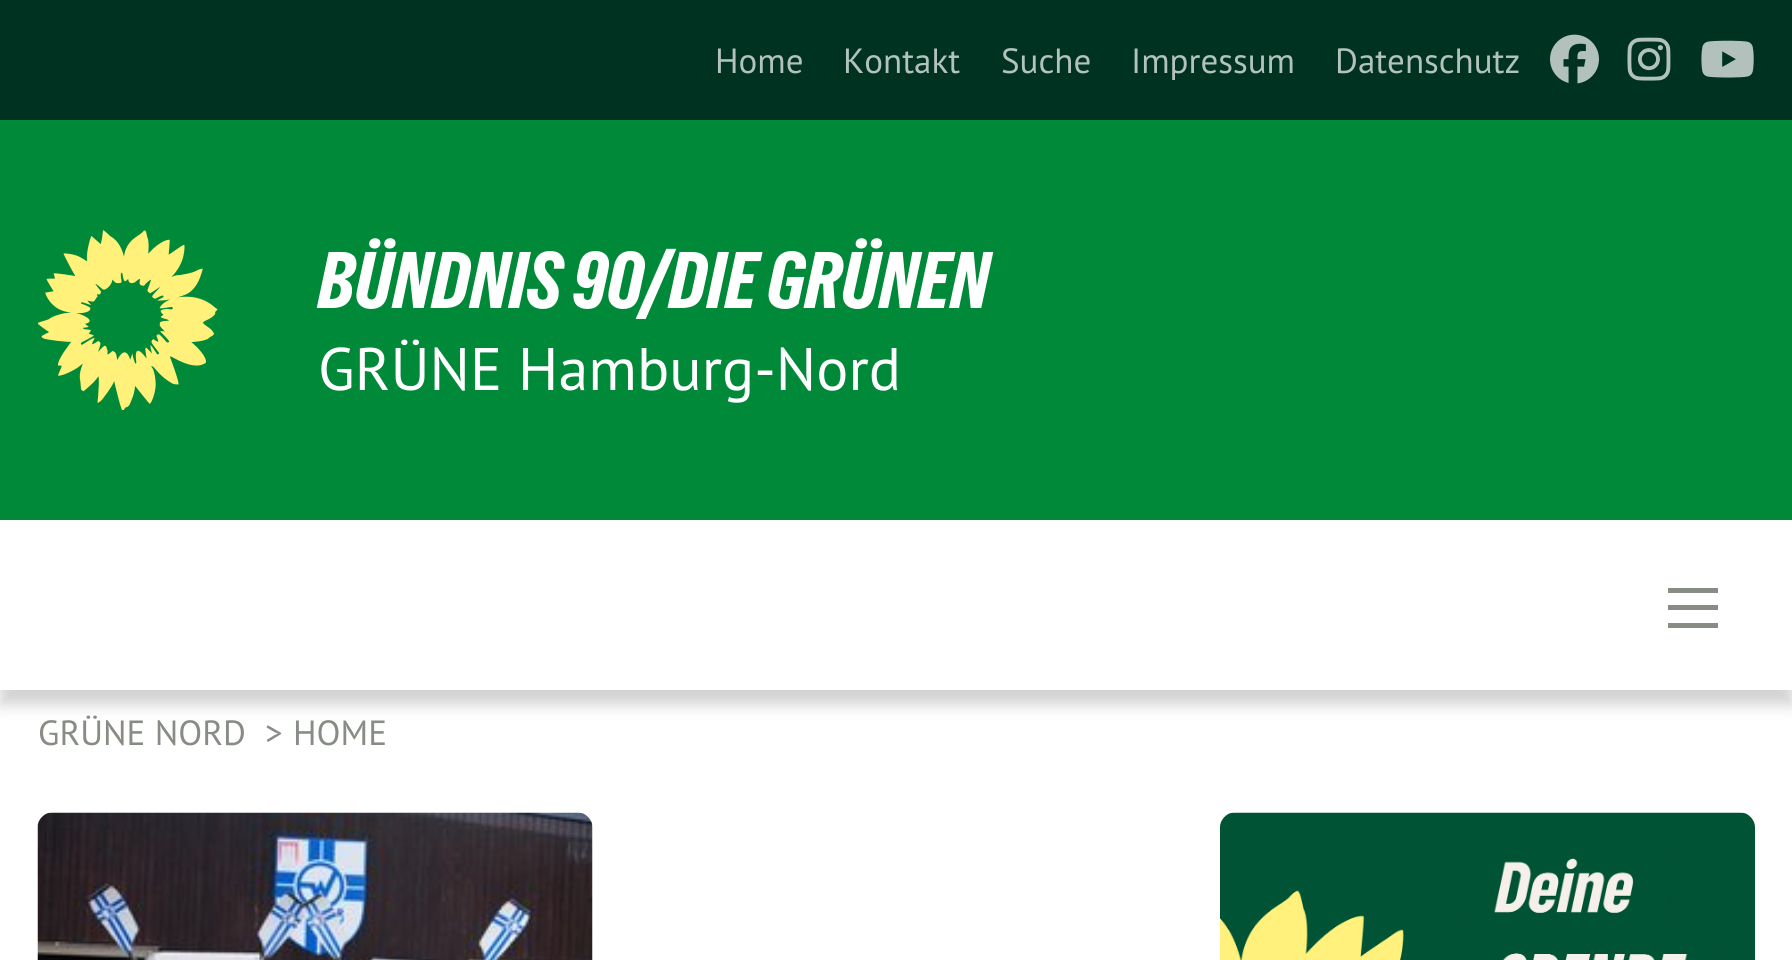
#include <cairo/cairo.h>
#include <math.h>
#include <stddef.h>

static cairo_t *cr;

static void use_color(int r, int g, int b) {
  cairo_set_source_rgb(cr, r / 255.0, g / 255.0, b / 255.0);
}

static void text(double x, double y, const char *s, const char *family, double size, int italic, int bold, int r, int g, int b) {
  cairo_select_font_face(cr, family, italic ? CAIRO_FONT_SLANT_ITALIC : CAIRO_FONT_SLANT_NORMAL,
    bold ? CAIRO_FONT_WEIGHT_BOLD : CAIRO_FONT_WEIGHT_NORMAL);
  cairo_set_font_size(cr, size);
  use_color(r, g, b);
  cairo_move_to(cr, x, y);
  cairo_show_text(cr, s);
}

static void box(double x, double y, double w, double h, int r, int g, int b) {
  use_color(r, g, b);
  cairo_rectangle(cr, x, y, w, h);
  cairo_fill(cr);
}

static void round_rect(double x, double y, double w, double h, double r) {
  cairo_new_sub_path(cr);
  cairo_arc(cr, x + w - r, y + h - r, r, 0, M_PI / 2);
  cairo_arc(cr, x + r, y + h - r, r, M_PI / 2, M_PI);
  cairo_arc(cr, x + r, y + r, r, M_PI, 1.5 * M_PI);
  cairo_arc(cr, x + w - r, y + r, r, 1.5 * M_PI, 2 * M_PI);
  cairo_close_path(cr);
}

static void shadow(double x, double y, double w, double h, double r, double blur, double alpha) {
  cairo_push_group_with_content(cr, CAIRO_CONTENT_ALPHA);
  cairo_set_operator(cr, CAIRO_OPERATOR_SOURCE);
  for (int i = 15; i >= -15 && fmin(w, h) + blur * i / 3 > 0; i -= 2) {
    double e = blur * i / 6;
    cairo_set_source_rgba(cr, 0, 0, 0, alpha * erfc((i - 1) / 8.5) / 2);
    round_rect(x - e, y - e, w + 2 * e, h + 2 * e, fmax(0, fmin(r + e + blur * .6, fmin(w, h) / 2 + e)));
    cairo_fill(cr);
  }
  cairo_pattern_t *soft = cairo_pop_group(cr);
  cairo_mask(cr, soft);
  cairo_pattern_destroy(soft);
}

static void picture(const char *path, double x, double y, double w, double h) {
  cairo_surface_t *image = cairo_image_surface_create_from_png(path);
  cairo_save(cr);
  cairo_set_source_surface(cr, image, x, y);
  cairo_rectangle(cr, x, y, w, h);
  cairo_fill(cr);
  cairo_restore(cr);
  cairo_surface_destroy(image);
}

static void draw(void) {
  use_color(255, 255, 255);
  cairo_paint(cr);
  box(0, 0, 1792, 120, 0, 50, 33);
  picture("img_01.png", 1550, 34, 49, 50);
  picture("img_02.png", 1627, 37, 44, 44);
  picture("img_03.png", 1701, 40, 53, 38);
  box(0, 120, 1792, 400, 0, 137, 57);
  picture("img_04.png", 38, 230, 180, 180);
  use_color(32, 29, 27);
  shadow(0, 535, 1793, 170, 0, 7.5, 0.2);
  box(0, 523, 1792, 167, 255, 255, 255);
  box(1668, 623, 50, 5, 135, 140, 133);
  box(1668, 605, 50, 5, 135, 140, 133);
  box(1668, 588, 50, 5, 135, 140, 133);
  picture("img_05.png", 37, 812, 556, 148);
  picture("img_06.png", 1220, 812, 535, 148);
  text(715, 73, "Home", "PT Sans", 35, 0, 0, 179, 194, 188);
  text(843, 73, "Kontakt", "PT Sans", 35, 0, 0, 179, 194, 188);
  text(1001, 73, "Suche", "PT Sans", 35, 0, 0, 179, 194, 188);
  text(1131, 73, "Impressum", "PT Sans", 35, 0, 0, 179, 194, 188);
  text(1335, 73, "Datenschutz", "PT Sans", 35, 0, 0, 179, 194, 188);
  text(318, 308, "BÜNDNIS 90/DIE GRÜNEN", "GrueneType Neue", 75, 0, 0, 255, 255, 255);
  text(318, 390, "GRÜNE Hamburg‑Nord", "PT Sans", 60, 0, 0, 255, 255, 255);
  text(38, 745, "GRÜNE NORD", "PT Sans", 35, 0, 0, 135, 140, 133);
  text(265, 745, ">", "PT Sans", 35, 0, 0, 135, 140, 133);
  text(293, 745, "HOME", "PT Sans", 35, 0, 0, 135, 140, 133);
}

int main(void) {
  cairo_surface_t *surface = cairo_image_surface_create(CAIRO_FORMAT_RGB24, 1792, 960);
  cr = cairo_create(surface);
  cairo_font_options_t *options = cairo_font_options_create();
  cairo_font_options_set_hint_metrics(options, CAIRO_HINT_METRICS_OFF);
  cairo_font_options_set_hint_style(options, CAIRO_HINT_STYLE_NONE);
  cairo_set_font_options(cr, options);
  cairo_set_miter_limit(cr, 4);
  draw();
  cairo_surface_write_to_png(surface, "out.png");
  cairo_font_options_destroy(options);
  cairo_destroy(cr);
  cairo_surface_destroy(surface);
  return 0;
}
